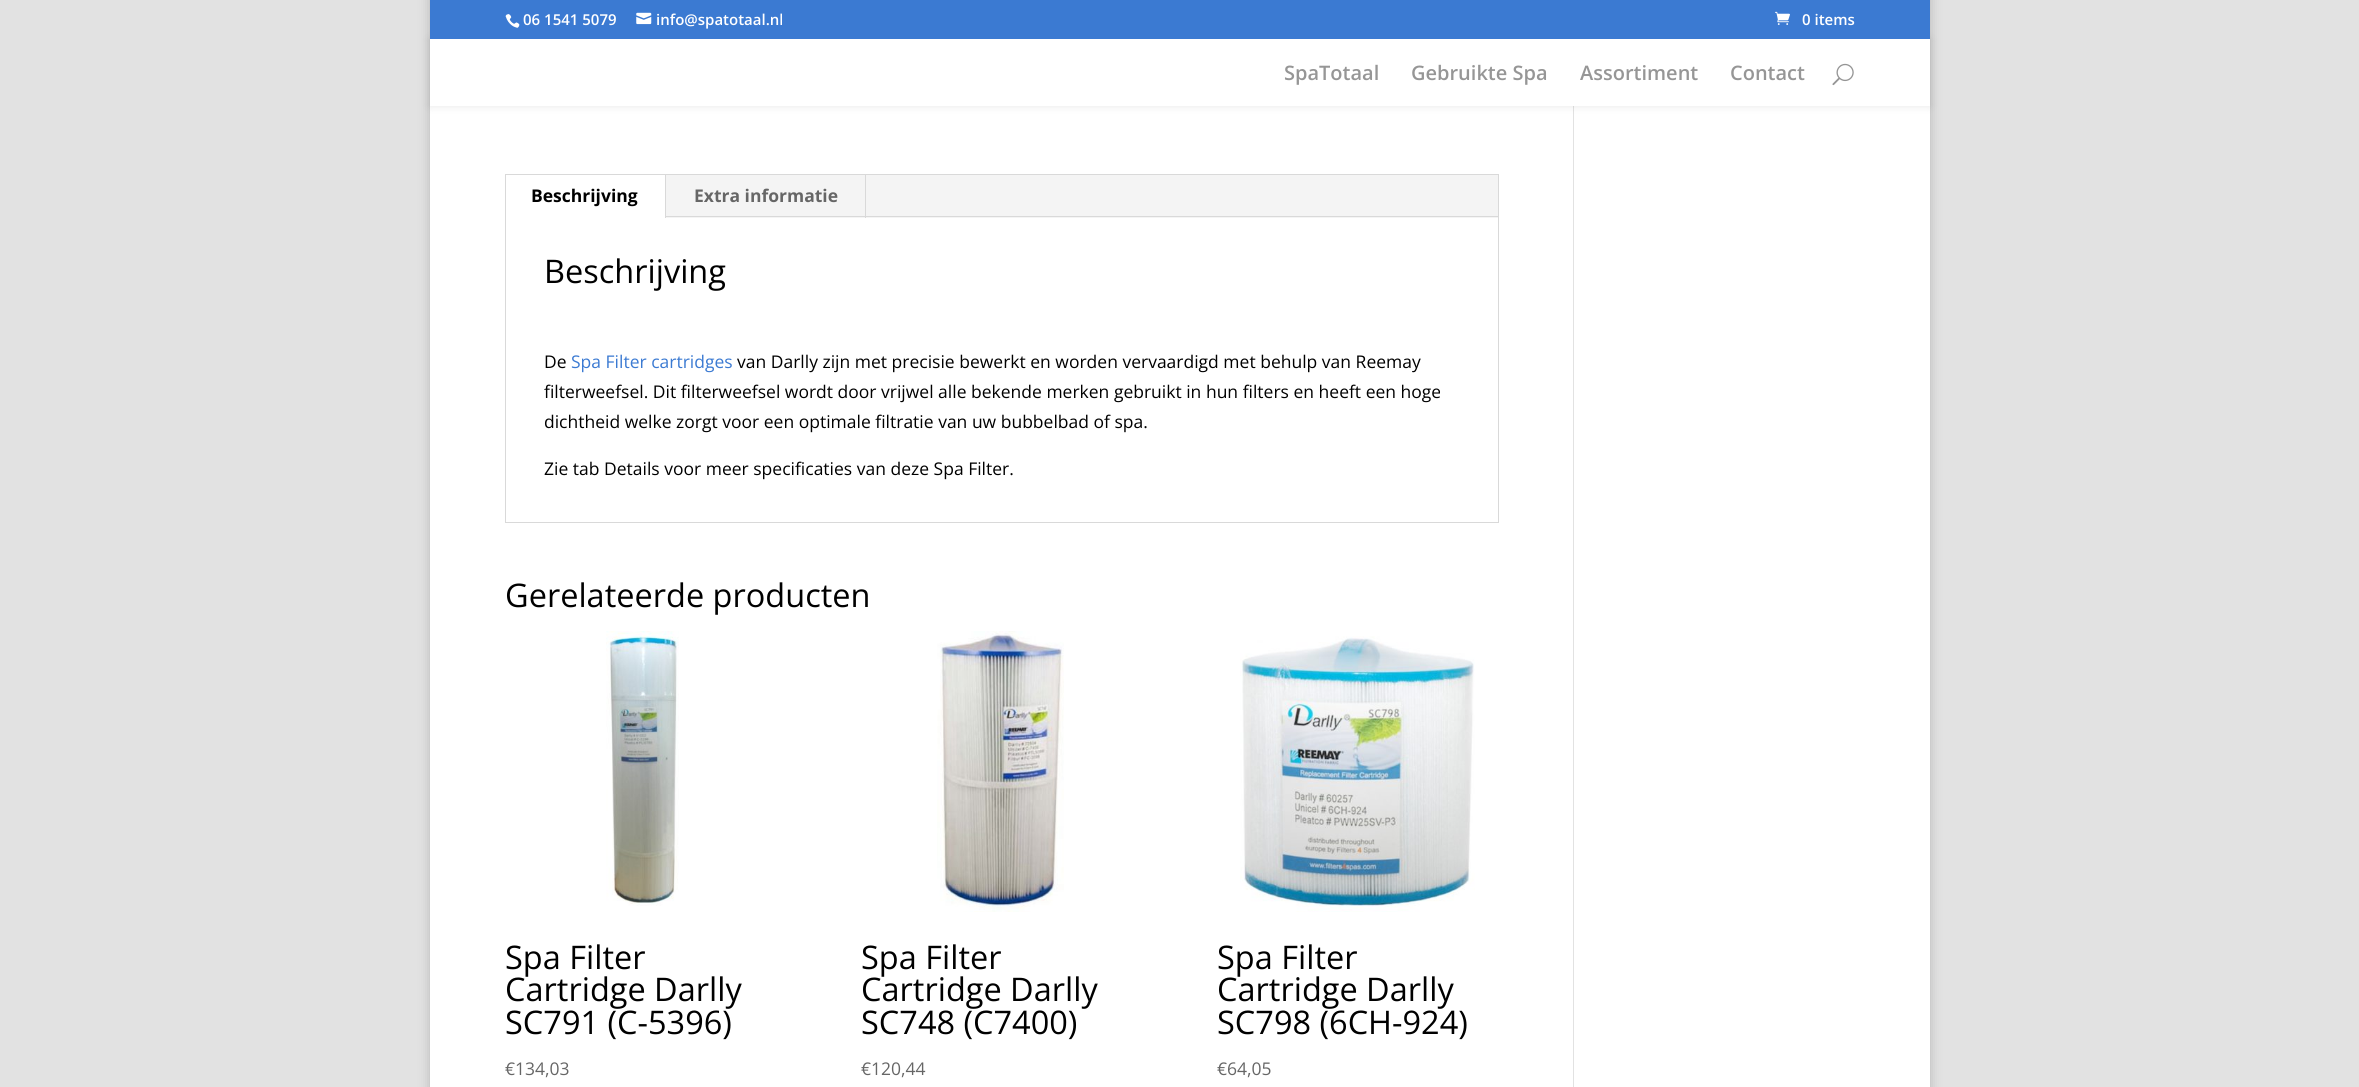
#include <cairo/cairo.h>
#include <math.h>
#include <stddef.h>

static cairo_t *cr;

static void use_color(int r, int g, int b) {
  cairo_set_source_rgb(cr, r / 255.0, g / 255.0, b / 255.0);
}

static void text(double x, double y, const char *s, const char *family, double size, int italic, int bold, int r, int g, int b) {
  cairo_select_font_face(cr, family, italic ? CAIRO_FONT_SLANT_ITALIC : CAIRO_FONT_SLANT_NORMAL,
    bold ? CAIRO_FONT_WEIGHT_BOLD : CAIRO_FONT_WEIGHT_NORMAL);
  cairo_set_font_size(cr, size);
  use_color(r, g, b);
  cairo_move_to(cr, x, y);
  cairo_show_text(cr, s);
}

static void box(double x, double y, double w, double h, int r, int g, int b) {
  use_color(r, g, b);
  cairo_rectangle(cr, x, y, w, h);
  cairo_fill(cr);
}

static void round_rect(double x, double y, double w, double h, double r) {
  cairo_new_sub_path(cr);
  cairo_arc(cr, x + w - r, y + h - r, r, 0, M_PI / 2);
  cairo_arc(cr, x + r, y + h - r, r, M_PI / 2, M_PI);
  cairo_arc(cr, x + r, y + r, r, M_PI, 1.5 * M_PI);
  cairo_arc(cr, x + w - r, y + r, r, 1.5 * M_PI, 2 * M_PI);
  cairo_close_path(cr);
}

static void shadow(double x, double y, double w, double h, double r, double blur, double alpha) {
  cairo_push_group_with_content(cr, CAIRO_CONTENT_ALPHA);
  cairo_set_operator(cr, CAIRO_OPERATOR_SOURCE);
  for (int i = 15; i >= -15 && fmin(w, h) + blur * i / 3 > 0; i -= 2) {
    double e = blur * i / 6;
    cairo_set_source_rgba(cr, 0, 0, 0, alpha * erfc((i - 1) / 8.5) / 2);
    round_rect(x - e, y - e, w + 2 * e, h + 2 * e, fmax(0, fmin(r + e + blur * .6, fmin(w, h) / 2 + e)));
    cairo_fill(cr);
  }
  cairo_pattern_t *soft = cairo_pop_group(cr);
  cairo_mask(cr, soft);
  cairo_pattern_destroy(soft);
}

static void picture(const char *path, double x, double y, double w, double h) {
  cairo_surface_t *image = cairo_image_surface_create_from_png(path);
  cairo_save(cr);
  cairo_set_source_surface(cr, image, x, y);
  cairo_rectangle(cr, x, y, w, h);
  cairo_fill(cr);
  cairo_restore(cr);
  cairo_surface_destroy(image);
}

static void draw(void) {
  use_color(226, 226, 226);
  cairo_paint(cr);
  use_color(0, 0, 0);
  shadow(430, -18, 1500, 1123, 0, 6, 0.2);
  box(430, 106, 1500, 981, 255, 255, 255);
  box(1573, 106, 1, 981, 226, 226, 226);
  use_color(0, 0, 0);
  shadow(430, 39, 1500, 67, 0, 4.5, 0.1);
  box(430, 0, 1500, 39, 59, 122, 210);
  picture("img_01.png", 505, 14, 15, 14);
  picture("img_02.png", 636, 12, 16, 13);
  picture("img_03.png", 1775, 11, 15, 14);
  box(430, 39, 1500, 67, 255, 255, 255);
  picture("img_04.png", 1832, 63, 22, 23);
  cairo_rectangle(cr, 505.5, 174.5, 993, 348);
  use_color(217, 217, 217);
  cairo_set_line_width(cr, 1);
  cairo_stroke(cr);
  box(666, 175, 832, 43, 244, 244, 244);
  box(665, 175, 1, 43, 217, 217, 217);
  box(865, 175, 1, 43, 217, 217, 217);
  box(666, 216, 832, 1, 217, 217, 217);
  picture("img_05.png", 606, 631, 73, 275);
  picture("img_06.png", 937, 631, 127, 281);
  picture("img_07.png", 1240, 636, 235, 276);
  text(523, 25, "06 1541 5079", "Open Sans SemiBold", 15, 0, 0, 255, 255, 255);
  text(656, 25, "info@spatotaal.nl", "Open Sans SemiBold", 15, 0, 0, 255, 255, 255);
  text(1802, 25, "0 items", "Open Sans SemiBold", 15, 0, 0, 255, 255, 255);
  text(1284, 80, "SpaTotaal", "Open Sans SemiBold", 20, 0, 0, 150, 150, 150);
  text(1411, 80, "Gebruikte Spa", "Open Sans SemiBold", 20, 0, 0, 150, 150, 150);
  text(1580, 80, "Assortiment", "Open Sans SemiBold", 20, 0, 0, 150, 150, 150);
  text(1730, 80, "Contact", "Open Sans SemiBold", 20, 0, 0, 150, 150, 150);
  text(531, 202, "Beschrijving", "Open Sans", 17.5, 0, 1, 0, 0, 0);
  text(694, 202, "Extra informatie", "Open Sans", 17.5, 0, 1, 102, 102, 102);
  text(544, 283, "Beschrijving", "Open Sans", 32.5, 0, 0, 0, 0, 0);
  text(544, 368, "De", "Open Sans", 17.5, 0, 0, 0, 0, 0);
  text(571, 368, "Spa Filter cartridges", "Open Sans", 17.5, 0, 0, 59, 122, 210);
  text(737, 368, "van Darlly zijn met precisie bewerkt en worden vervaardigd met behulp van Reemay", "Open Sans", 17.5, 0, 0, 0, 0, 0);
  text(544, 398, "filterweefsel. Dit filterweefsel wordt door vrijwel alle bekende merken gebruikt in hun filters en heeft een hoge", "Open Sans", 17.5, 0, 0, 0, 0, 0);
  text(544, 428, "dichtheid welke zorgt voor een optimale filtratie van uw bubbelbad of spa.", "Open Sans", 17.5, 0, 0, 0, 0, 0);
  text(544, 475, "Zie tab Details voor meer specificaties van deze Spa Filter.", "Open Sans", 17.5, 0, 0, 0, 0, 0);
  text(505, 607, "Gerelateerde producten", "Open Sans", 32.5, 0, 0, 0, 0, 0);
  text(505, 969, "Spa Filter", "Open Sans", 32.5, 0, 0, 0, 0, 0);
  text(505, 1001, "Cartridge Darlly", "Open Sans", 32.5, 0, 0, 0, 0, 0);
  text(505, 1034, "SC791 (C-5396)", "Open Sans", 32.5, 0, 0, 0, 0, 0);
  text(505, 1075, "€134,03", "Open Sans", 17.5, 0, 0, 102, 102, 102);
  text(861, 969, "Spa Filter", "Open Sans", 32.5, 0, 0, 0, 0, 0);
  text(861, 1001, "Cartridge Darlly", "Open Sans", 32.5, 0, 0, 0, 0, 0);
  text(861, 1034, "SC748 (C7400)", "Open Sans", 32.5, 0, 0, 0, 0, 0);
  text(861, 1075, "€120,44", "Open Sans", 17.5, 0, 0, 102, 102, 102);
  text(1217, 969, "Spa Filter", "Open Sans", 32.5, 0, 0, 0, 0, 0);
  text(1217, 1001, "Cartridge Darlly", "Open Sans", 32.5, 0, 0, 0, 0, 0);
  text(1217, 1034, "SC798 (6CH-924)", "Open Sans", 32.5, 0, 0, 0, 0, 0);
  text(1217, 1075, "€64,05", "Open Sans", 17.5, 0, 0, 102, 102, 102);
}

int main(void) {
  cairo_surface_t *surface = cairo_image_surface_create(CAIRO_FORMAT_RGB24, 2359, 1087);
  cr = cairo_create(surface);
  cairo_font_options_t *options = cairo_font_options_create();
  cairo_font_options_set_hint_metrics(options, CAIRO_HINT_METRICS_OFF);
  cairo_font_options_set_hint_style(options, CAIRO_HINT_STYLE_NONE);
  cairo_set_font_options(cr, options);
  cairo_set_miter_limit(cr, 4);
  draw();
  cairo_surface_write_to_png(surface, "out.png");
  cairo_font_options_destroy(options);
  cairo_destroy(cr);
  cairo_surface_destroy(surface);
  return 0;
}
